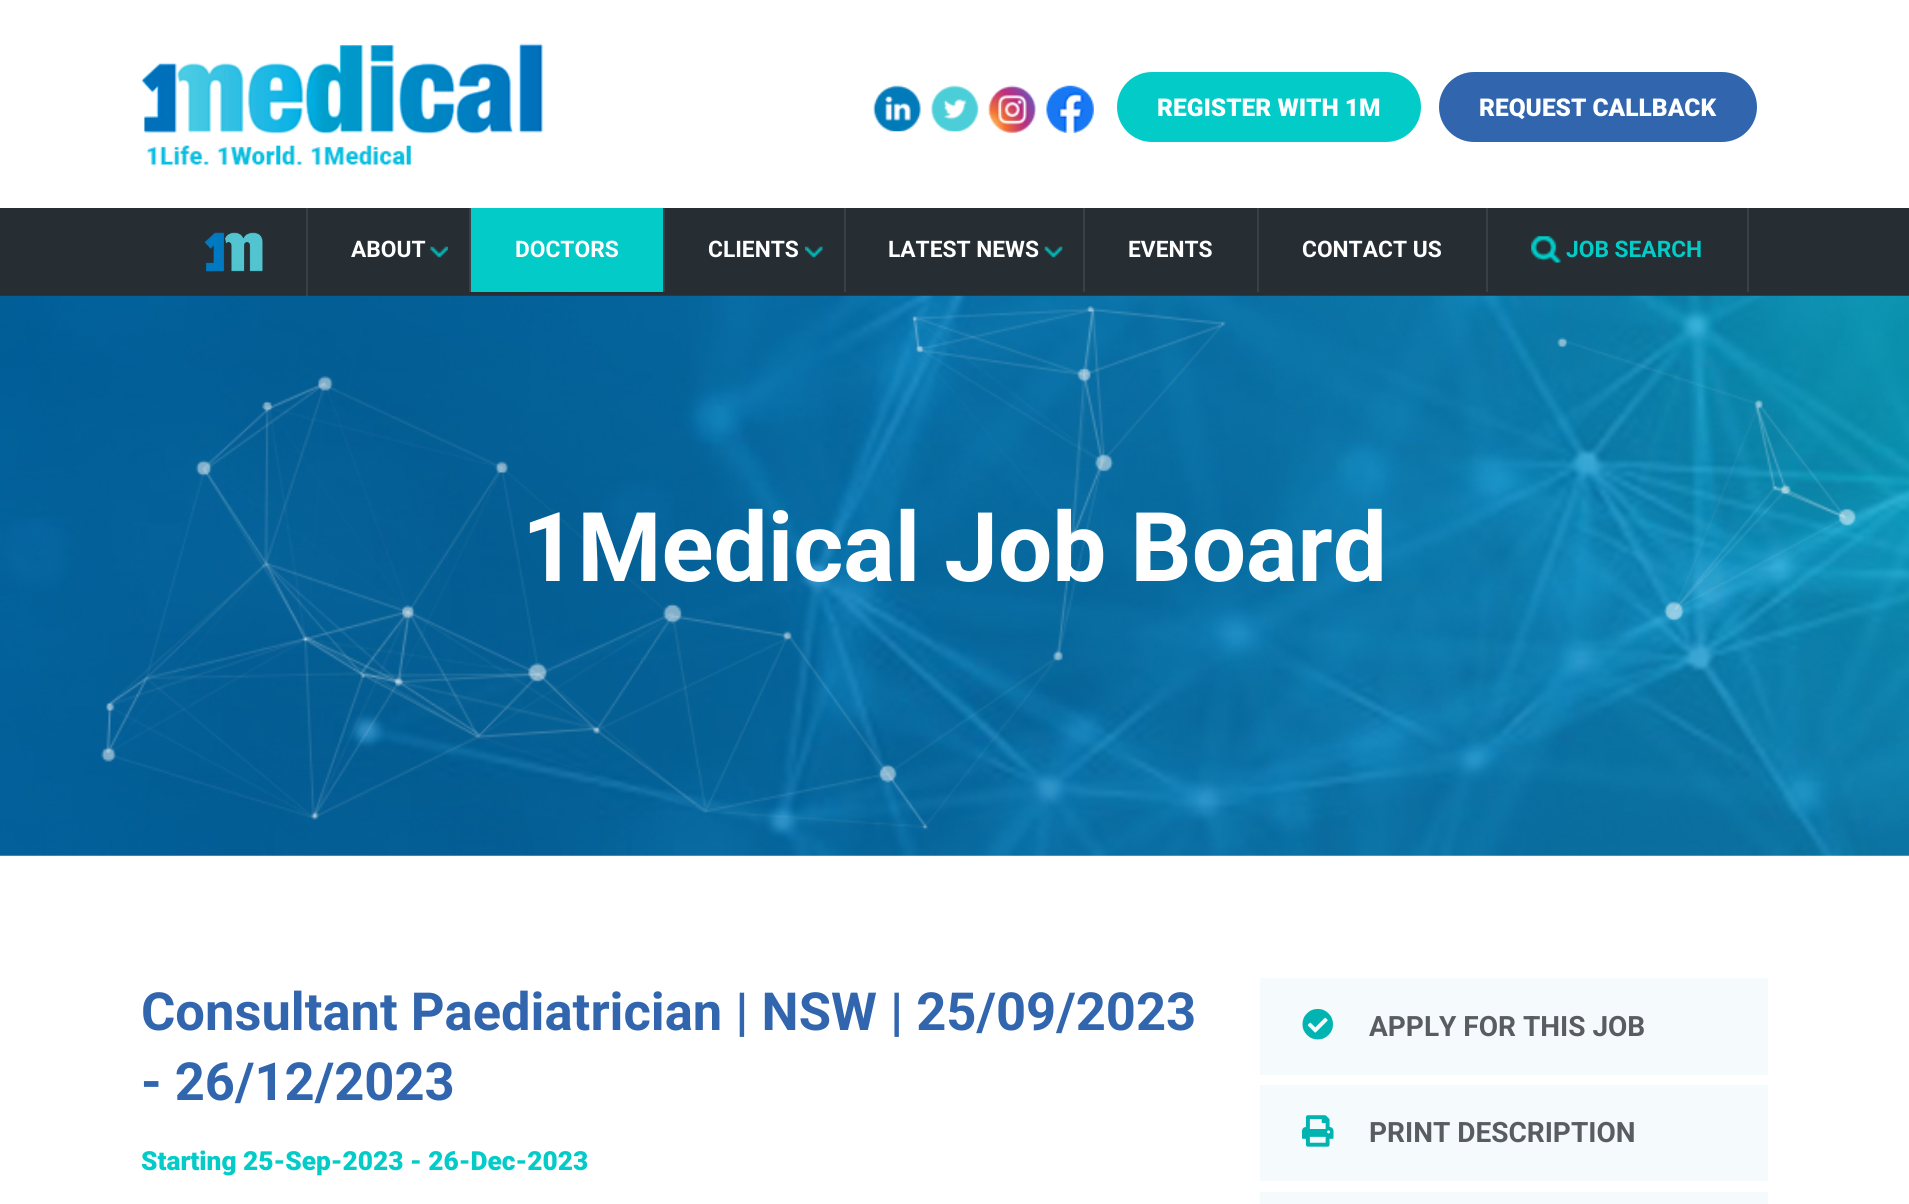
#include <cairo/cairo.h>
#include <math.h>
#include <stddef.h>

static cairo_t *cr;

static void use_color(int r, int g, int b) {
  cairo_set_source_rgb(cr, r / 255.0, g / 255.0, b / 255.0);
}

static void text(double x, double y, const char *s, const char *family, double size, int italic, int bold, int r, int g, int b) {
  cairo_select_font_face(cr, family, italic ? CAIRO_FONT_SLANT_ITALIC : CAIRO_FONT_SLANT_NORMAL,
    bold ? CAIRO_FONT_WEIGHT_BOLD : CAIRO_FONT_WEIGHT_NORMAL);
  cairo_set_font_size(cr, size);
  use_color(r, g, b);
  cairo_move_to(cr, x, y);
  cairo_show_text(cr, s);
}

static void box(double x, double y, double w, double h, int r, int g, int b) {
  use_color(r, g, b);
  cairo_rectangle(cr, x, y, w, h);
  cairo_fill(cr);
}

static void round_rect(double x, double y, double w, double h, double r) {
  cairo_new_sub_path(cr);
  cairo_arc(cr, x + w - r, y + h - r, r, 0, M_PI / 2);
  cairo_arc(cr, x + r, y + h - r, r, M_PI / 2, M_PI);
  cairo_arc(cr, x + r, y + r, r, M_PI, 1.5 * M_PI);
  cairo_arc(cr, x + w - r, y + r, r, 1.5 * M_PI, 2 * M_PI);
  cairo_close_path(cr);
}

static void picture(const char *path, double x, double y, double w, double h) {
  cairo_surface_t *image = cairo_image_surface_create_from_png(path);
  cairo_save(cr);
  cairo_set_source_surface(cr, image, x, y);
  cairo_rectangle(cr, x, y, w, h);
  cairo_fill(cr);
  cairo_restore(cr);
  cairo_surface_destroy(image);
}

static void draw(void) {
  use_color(255, 255, 255);
  cairo_paint(cr);
  picture("img_01.png", 141, 43, 402, 122);
  picture("img_02.png", 873, 85, 48, 47);
  picture("img_03.png", 931, 85, 48, 47);
  picture("img_04.png", 988, 85, 48, 48);
  picture("img_05.png", 1046, 85, 48, 48);
  use_color(2, 203, 200);
  round_rect(1117, 72, 304, 70, 35);
  cairo_fill(cr);
  use_color(49, 102, 174);
  round_rect(1439, 72, 318, 70, 35);
  cairo_fill(cr);
  box(0, 208, 1909, 88, 38, 46, 52);
  box(306, 208, 2, 88, 57, 64, 70);
  picture("img_06.png", 204, 232, 59, 40);
  box(469, 208, 2, 84, 57, 64, 70);
  picture("img_07.png", 430, 246, 18, 12);
  box(471, 208, 192, 84, 2, 203, 200);
  box(663, 208, 2, 84, 57, 64, 70);
  box(844, 208, 2, 84, 57, 64, 70);
  picture("img_08.png", 805, 246, 18, 12);
  box(1083, 208, 2, 84, 57, 64, 70);
  picture("img_09.png", 1044, 246, 19, 12);
  box(1257, 208, 2, 84, 57, 64, 70);
  box(1486, 208, 2, 84, 57, 64, 70);
  box(1747, 208, 2, 84, 57, 64, 70);
  picture("img_10.png", 1531, 236, 30, 27);
  picture("img_11.png", 0, 295, 1909, 561);
  box(1260, 978, 508, 97, 245, 250, 253);
  picture("img_13.png", 1302, 1008, 31, 32);
  box(1260, 1085, 508, 96, 245, 250, 253);
  picture("img_14.png", 1302, 1115, 32, 32);
  box(1260, 1192, 508, 12, 245, 250, 253);
  text(1157, 116, "REGISTER WITH 1M", "Roboto Black", 24.5, 0, 0, 255, 255, 255);
  text(1479, 116, "REQUEST CALLBACK", "Roboto Black", 24.5, 0, 0, 255, 255, 255);
  text(351, 257, "ABOUT", "Roboto", 22.75, 0, 1, 255, 255, 255);
  text(515, 257, "DOCTORS", "Roboto", 22.75, 0, 1, 255, 255, 255);
  text(708, 257, "CLIENTS", "Roboto", 22.75, 0, 1, 255, 255, 255);
  text(888, 257, "LATEST NEWS", "Roboto", 22.75, 0, 1, 255, 255, 255);
  text(1128, 257, "EVENTS", "Roboto", 22.75, 0, 1, 255, 255, 255);
  text(1302, 257, "CONTACT US", "Roboto", 22.75, 0, 1, 255, 255, 255);
  text(1566, 257, "JOB SEARCH", "Roboto", 22.75, 0, 1, 2, 203, 200);
  text(522, 581, "1Medical Job Board", "Roboto", 96.25, 0, 1, 255, 255, 255);
  picture("img_12.png", 101, 306, 1755, 524);
  text(141, 1030, "Consultant Paediatrician | NSW | 25/09/2023", "Roboto", 52.5, 0, 1, 49, 102, 174);
  text(141, 1100, "- 26/12/2023", "Roboto", 52.5, 0, 1, 49, 102, 174);
  text(141, 1170, "Starting 25-Sep-2023 - 26-Dec-2023", "Roboto Black", 26.25, 0, 0, 2, 203, 200);
  text(1369, 1036, "APPLY FOR THIS JOB", "Roboto", 28, 0, 1, 89, 93, 97);
  text(1369, 1142, "PRINT DESCRIPTION", "Roboto", 28, 0, 1, 89, 93, 97);
}

int main(void) {
  cairo_surface_t *surface = cairo_image_surface_create(CAIRO_FORMAT_RGB24, 1909, 1204);
  cr = cairo_create(surface);
  cairo_font_options_t *options = cairo_font_options_create();
  cairo_font_options_set_hint_metrics(options, CAIRO_HINT_METRICS_OFF);
  cairo_font_options_set_hint_style(options, CAIRO_HINT_STYLE_NONE);
  cairo_set_font_options(cr, options);
  cairo_set_miter_limit(cr, 4);
  draw();
  cairo_surface_write_to_png(surface, "out.png");
  cairo_font_options_destroy(options);
  cairo_destroy(cr);
  cairo_surface_destroy(surface);
  return 0;
}
